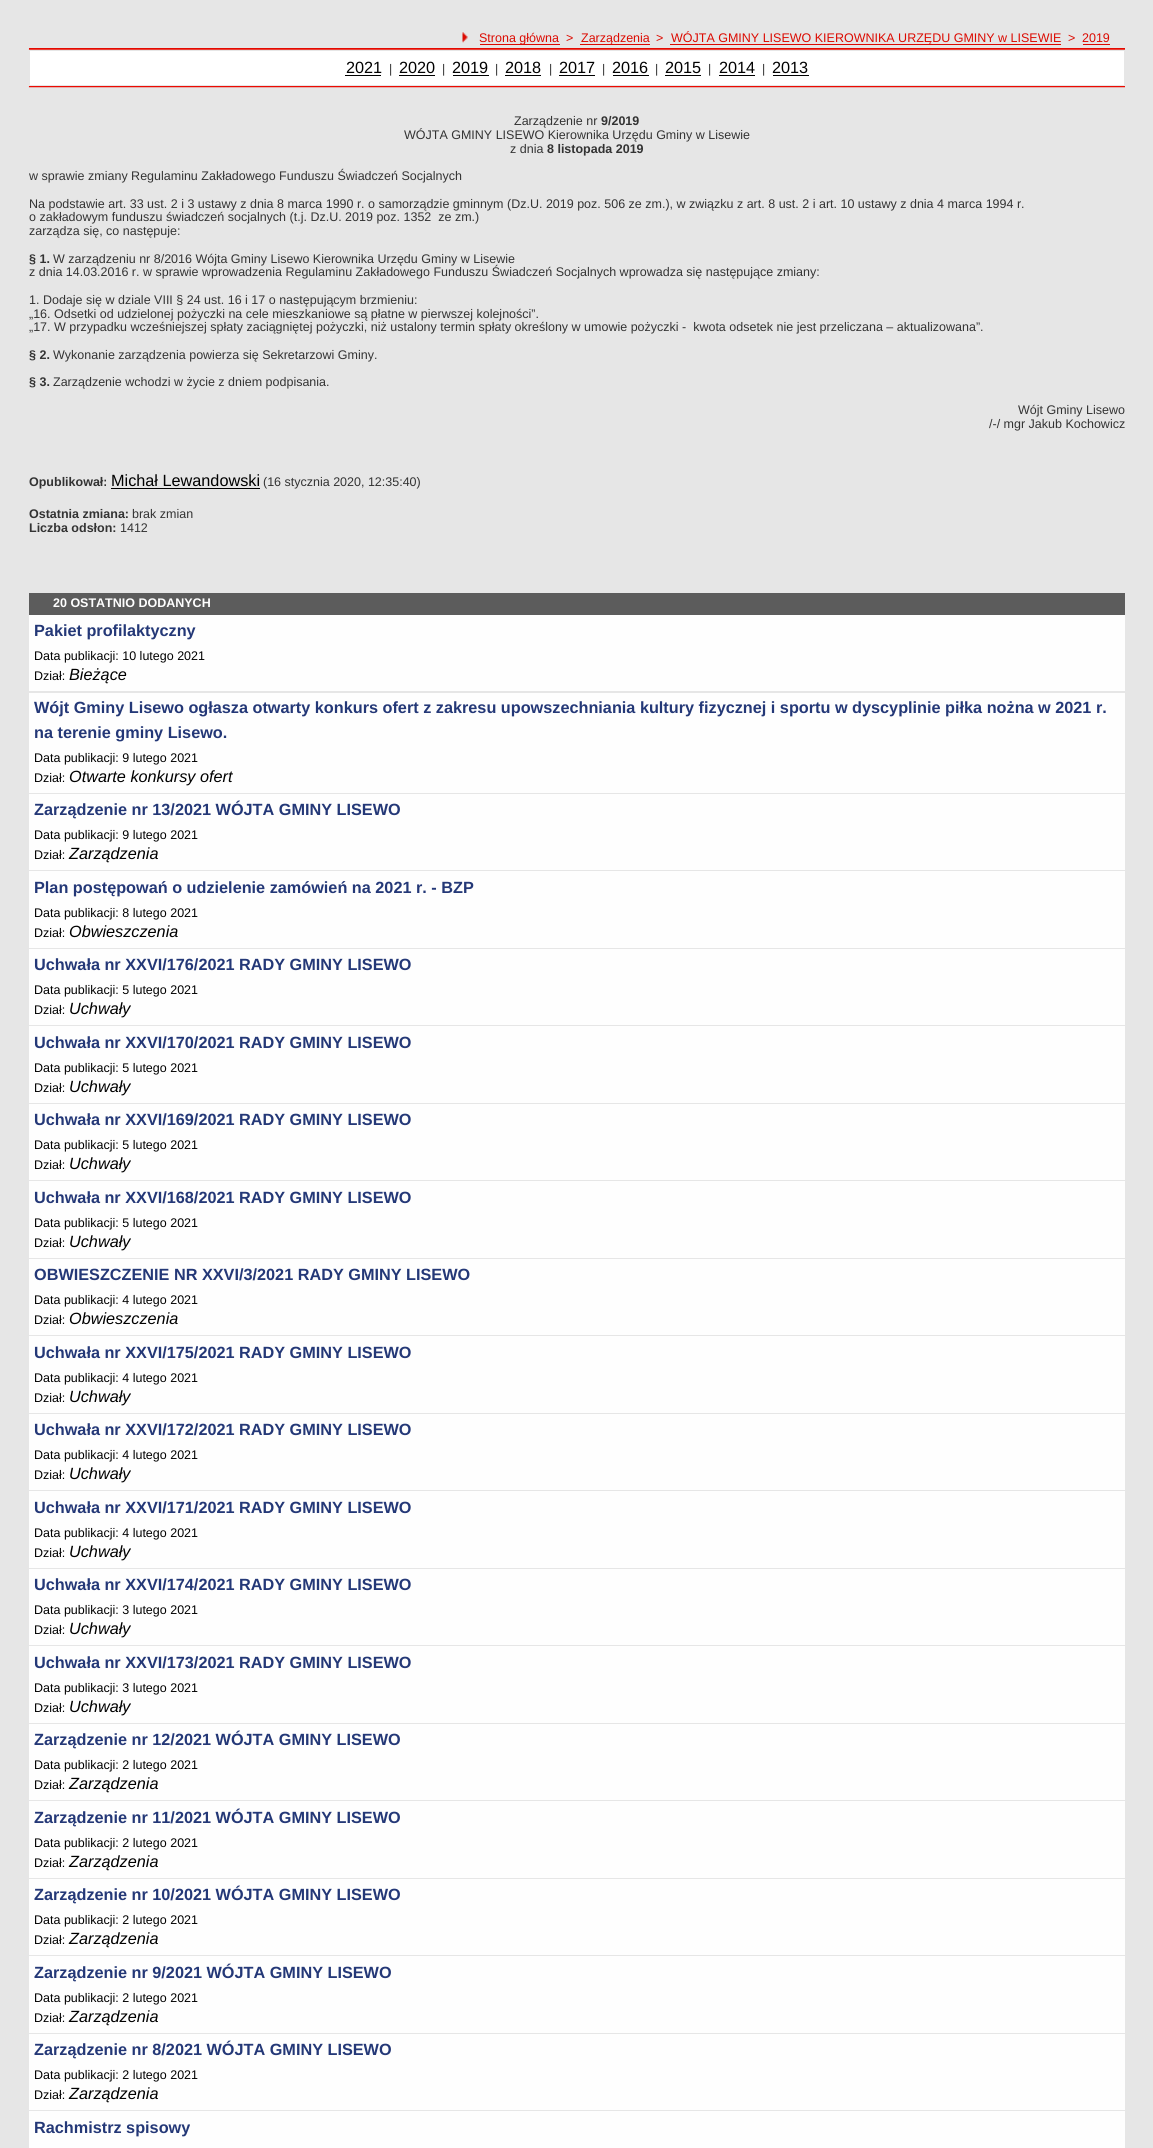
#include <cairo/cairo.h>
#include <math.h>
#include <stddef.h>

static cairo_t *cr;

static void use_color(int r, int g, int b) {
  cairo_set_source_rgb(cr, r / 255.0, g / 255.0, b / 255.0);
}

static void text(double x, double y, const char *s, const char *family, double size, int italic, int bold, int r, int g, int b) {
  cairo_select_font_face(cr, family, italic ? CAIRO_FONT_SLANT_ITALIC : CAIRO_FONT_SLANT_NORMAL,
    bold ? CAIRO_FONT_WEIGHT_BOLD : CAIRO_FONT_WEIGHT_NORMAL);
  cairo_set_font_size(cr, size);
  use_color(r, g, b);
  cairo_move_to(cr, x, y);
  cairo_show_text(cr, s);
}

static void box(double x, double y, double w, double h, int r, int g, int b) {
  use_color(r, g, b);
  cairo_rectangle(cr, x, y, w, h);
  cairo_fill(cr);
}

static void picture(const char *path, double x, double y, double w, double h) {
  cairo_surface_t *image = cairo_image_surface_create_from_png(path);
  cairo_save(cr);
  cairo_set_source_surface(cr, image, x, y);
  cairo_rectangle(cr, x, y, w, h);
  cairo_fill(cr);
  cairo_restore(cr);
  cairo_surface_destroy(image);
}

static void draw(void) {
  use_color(230, 230, 230);
  cairo_paint(cr);
  box(29, 48, 1096, 1, 220, 10, 1);
  picture("img_01.png", 462, 32, 6, 11);
  box(480, 44, 80, 1, 220, 10, 1);
  box(580, 44, 70, 1, 220, 10, 1);
  box(670, 44, 391, 1, 220, 10, 1);
  box(1083, 44, 27, 1, 220, 10, 1);
  picture("img_02.png", 28, 48, 1097, 2);
  box(30, 51, 1094, 34, 255, 255, 255);
  box(345, 75, 36, 1, 0, 0, 0);
  box(399, 75, 36, 1, 0, 0, 0);
  box(453, 75, 36, 1, 0, 0, 0);
  box(505, 75, 36, 1, 0, 0, 0);
  box(559, 75, 36, 1, 0, 0, 0);
  box(613, 75, 36, 1, 0, 0, 0);
  box(665, 75, 36, 1, 0, 0, 0);
  box(719, 75, 36, 1, 0, 0, 0);
  box(773, 75, 36, 1, 0, 0, 0);
  picture("img_03.png", 28, 86, 1097, 2);
  box(111, 488, 149, 1, 0, 0, 0);
  box(29, 593, 1096, 22, 92, 92, 92);
  box(29, 615, 1096, 76, 254, 254, 254);
  box(29, 693, 1096, 100, 254, 254, 254);
  box(29, 794, 1096, 76, 254, 254, 254);
  box(29, 871, 1096, 77, 254, 254, 254);
  box(29, 949, 1096, 76, 254, 254, 254);
  box(29, 1026, 1096, 77, 254, 254, 254);
  box(29, 1104, 1096, 76, 254, 254, 254);
  box(29, 1181, 1096, 77, 254, 254, 254);
  box(29, 1259, 1096, 76, 254, 254, 254);
  box(29, 1336, 1096, 77, 254, 254, 254);
  box(29, 1414, 1096, 76, 254, 254, 254);
  box(29, 1491, 1096, 77, 254, 254, 254);
  box(29, 1569, 1096, 76, 254, 254, 254);
  box(29, 1646, 1096, 77, 254, 254, 254);
  box(29, 1724, 1096, 76, 254, 254, 254);
  box(29, 1801, 1096, 77, 254, 254, 254);
  box(29, 1879, 1096, 76, 254, 254, 254);
  box(29, 1956, 1096, 77, 254, 254, 254);
  box(29, 2034, 1096, 76, 254, 254, 254);
  box(29, 2111, 1096, 37, 254, 254, 254);
  text(479, 42, "Strona główna", "Liberation Sans", 12.5, 0, 0, 220, 10, 1);
  text(566, 42, ">", "Liberation Sans", 12.5, 0, 0, 220, 10, 1);
  text(581, 42, "Zarządzenia", "Liberation Sans", 12.5, 0, 0, 220, 10, 1);
  text(656, 42, ">", "Liberation Sans", 12.5, 0, 0, 220, 10, 1);
  text(671, 42, "WÓJTA GMINY LISEWO KIEROWNIKA URZĘDU GMINY w LISEWIE", "Liberation Sans", 12.5, 0, 0, 220, 10, 1);
  text(1068, 42, ">", "Liberation Sans", 12.5, 0, 0, 220, 10, 1);
  text(1082, 42, "2019", "Liberation Sans", 12.5, 0, 0, 220, 10, 1);
  text(346, 73, "2021", "Liberation Sans", 16.25, 0, 0, 0, 0, 0);
  text(389, 73, "|", "Liberation Sans", 12.5, 0, 0, 51, 51, 51);
  text(399, 73, "2020", "Liberation Sans", 16.25, 0, 0, 0, 0, 0);
  text(442, 73, "|", "Liberation Sans", 12.5, 0, 0, 51, 51, 51);
  text(452, 73, "2019", "Liberation Sans", 16.25, 0, 0, 0, 0, 0);
  text(495, 73, "|", "Liberation Sans", 12.5, 0, 0, 51, 51, 51);
  text(505, 73, "2018", "Liberation Sans", 16.25, 0, 0, 0, 0, 0);
  text(549, 73, "|", "Liberation Sans", 12.5, 0, 0, 51, 51, 51);
  text(559, 73, "2017", "Liberation Sans", 16.25, 0, 0, 0, 0, 0);
  text(602, 73, "|", "Liberation Sans", 12.5, 0, 0, 51, 51, 51);
  text(612, 73, "2016", "Liberation Sans", 16.25, 0, 0, 0, 0, 0);
  text(655, 73, "|", "Liberation Sans", 12.5, 0, 0, 51, 51, 51);
  text(665, 73, "2015", "Liberation Sans", 16.25, 0, 0, 0, 0, 0);
  text(708, 73, "|", "Liberation Sans", 12.5, 0, 0, 51, 51, 51);
  text(719, 73, "2014", "Liberation Sans", 16.25, 0, 0, 0, 0, 0);
  text(762, 73, "|", "Liberation Sans", 12.5, 0, 0, 51, 51, 51);
  text(772, 73, "2013", "Liberation Sans", 16.25, 0, 0, 0, 0, 0);
  text(514, 125, "Zarządzenie nr", "Liberation Sans", 12.5, 0, 0, 51, 51, 51);
  text(601, 125, "9/2019", "Liberation Sans", 12.5, 0, 1, 51, 51, 51);
  text(404, 139, "WÓJTA GMINY LISEWO Kierownika Urzędu Gminy w Lisewie", "Liberation Sans", 12.5, 0, 0, 51, 51, 51);
  text(510, 153, "z dnia", "Liberation Sans", 12.5, 0, 0, 51, 51, 51);
  text(547, 153, "8 listopada 2019", "Liberation Sans", 12.5, 0, 1, 51, 51, 51);
  text(29, 180, "w sprawie zmiany Regulaminu Zakładowego Funduszu Świadczeń Socjalnych", "Liberation Sans", 12.5, 0, 0, 51, 51, 51);
  text(29, 208, "Na podstawie art. 33 ust. 2 i 3 ustawy z dnia 8 marca 1990 r. o samorządzie gminnym (Dz.U. 2019 poz. 506 ze zm.), w związku z art. 8 ust. 2 i art. 10 ustawy z dnia 4 marca 1994 r.", "Liberation Sans", 12.5, 0, 0, 51, 51, 51);
  text(29, 221, "o zakładowym funduszu świadczeń socjalnych (t.j. Dz.U. 2019 poz. 1352  ze zm.)", "Liberation Sans", 12.5, 0, 0, 51, 51, 51);
  text(29, 235, "zarządza się, co następuje:", "Liberation Sans", 12.5, 0, 0, 51, 51, 51);
  text(29, 263, "§ 1.", "Liberation Sans", 12.5, 0, 1, 51, 51, 51);
  text(53, 263, "W zarządzeniu nr 8/2016 Wójta Gminy Lisewo Kierownika Urzędu Gminy w Lisewie", "Liberation Sans", 12.5, 0, 0, 51, 51, 51);
  text(29, 276, "z dnia 14.03.2016 r. w sprawie wprowadzenia Regulaminu Zakładowego Funduszu Świadczeń Socjalnych wprowadza się następujące zmiany:", "Liberation Sans", 12.5, 0, 0, 51, 51, 51);
  text(29, 304, "1. Dodaje się w dziale VIII § 24 ust. 16 i 17 o następującym brzmieniu:", "Liberation Sans", 12.5, 0, 0, 51, 51, 51);
  text(29, 318, "„16. Odsetki od udzielonej pożyczki na cele mieszkaniowe są płatne w pierwszej kolejności”.", "Liberation Sans", 12.5, 0, 0, 51, 51, 51);
  text(29, 331, "„17. W przypadku wcześniejszej spłaty zaciągniętej pożyczki, niż ustalony termin spłaty określony w umowie pożyczki -  kwota odsetek nie jest przeliczana – aktualizowana”.", "Liberation Sans", 12.5, 0, 0, 51, 51, 51);
  text(29, 359, "§ 2.", "Liberation Sans", 12.5, 0, 1, 51, 51, 51);
  text(53, 359, "Wykonanie zarządzenia powierza się Sekretarzowi Gminy.", "Liberation Sans", 12.5, 0, 0, 51, 51, 51);
  text(29, 386, "§ 3.", "Liberation Sans", 12.5, 0, 1, 51, 51, 51);
  text(53, 386, "Zarządzenie wchodzi w życie z dniem podpisania.", "Liberation Sans", 12.5, 0, 0, 51, 51, 51);
  text(1018, 414, "Wójt Gminy Lisewo", "Liberation Sans", 12.5, 0, 0, 51, 51, 51);
  text(989, 428, "/-/ mgr Jakub Kochowicz", "Liberation Sans", 12.5, 0, 0, 51, 51, 51);
  text(29, 486, "Opublikował:", "Liberation Sans", 12.5, 0, 1, 51, 51, 51);
  text(111, 486, "Michał Lewandowski", "Liberation Sans", 16.25, 0, 0, 0, 0, 0);
  text(263, 486, "(16 stycznia 2020, 12:35:40)", "Liberation Sans", 12.5, 0, 0, 51, 51, 51);
  text(29, 518, "Ostatnia zmiana:", "Liberation Sans", 12.5, 0, 1, 51, 51, 51);
  text(132, 518, "brak zmian", "Liberation Sans", 12.5, 0, 0, 51, 51, 51);
  text(29, 532, "Liczba odsłon:", "Liberation Sans", 12.5, 0, 1, 51, 51, 51);
  text(120, 532, "1412", "Liberation Sans", 12.5, 0, 0, 51, 51, 51);
  text(53, 607, "20 OSTATNIO DODANYCH", "Liberation Sans", 12.5, 0, 1, 255, 255, 255);
  text(34, 636, "Pakiet profilaktyczny", "Liberation Sans", 16.25, 0, 1, 36, 56, 119);
  text(34, 660, "Data publikacji: 10 lutego 2021", "Liberation Sans", 12.5, 0, 0, 0, 0, 0);
  text(34, 680, "Dział:", "Liberation Sans", 12.5, 0, 0, 0, 0, 0);
  text(69, 680, "Bieżące", "Liberation Sans", 16.25, 1, 0, 0, 0, 0);
  text(34, 713, "Wójt Gminy Lisewo ogłasza otwarty konkurs ofert z zakresu upowszechniania kultury fizycznej i sportu w dyscyplinie piłka nożna w 2021 r.", "Liberation Sans", 16.25, 0, 1, 36, 56, 119);
  text(34, 738, "na terenie gminy Lisewo.", "Liberation Sans", 16.25, 0, 1, 36, 56, 119);
  text(34, 762, "Data publikacji: 9 lutego 2021", "Liberation Sans", 12.5, 0, 0, 0, 0, 0);
  text(34, 782, "Dział:", "Liberation Sans", 12.5, 0, 0, 0, 0, 0);
  text(69, 782, "Otwarte konkursy ofert", "Liberation Sans", 16.25, 1, 0, 0, 0, 0);
  text(34, 815, "Zarządzenie nr 13/2021 WÓJTA GMINY LISEWO", "Liberation Sans", 16.25, 0, 1, 36, 56, 119);
  text(34, 839, "Data publikacji: 9 lutego 2021", "Liberation Sans", 12.5, 0, 0, 0, 0, 0);
  text(34, 859, "Dział:", "Liberation Sans", 12.5, 0, 0, 0, 0, 0);
  text(69, 859, "Zarządzenia", "Liberation Sans", 16.25, 1, 0, 0, 0, 0);
  text(34, 893, "Plan postępowań o udzielenie zamówień na 2021 r. - BZP", "Liberation Sans", 16.25, 0, 1, 36, 56, 119);
  text(34, 917, "Data publikacji: 8 lutego 2021", "Liberation Sans", 12.5, 0, 0, 0, 0, 0);
  text(34, 937, "Dział:", "Liberation Sans", 12.5, 0, 0, 0, 0, 0);
  text(69, 937, "Obwieszczenia", "Liberation Sans", 16.25, 1, 0, 0, 0, 0);
  text(34, 970, "Uchwała nr XXVI/176/2021 RADY GMINY LISEWO", "Liberation Sans", 16.25, 0, 1, 36, 56, 119);
  text(34, 994, "Data publikacji: 5 lutego 2021", "Liberation Sans", 12.5, 0, 0, 0, 0, 0);
  text(34, 1014, "Dział:", "Liberation Sans", 12.5, 0, 0, 0, 0, 0);
  text(69, 1014, "Uchwały", "Liberation Sans", 16.25, 1, 0, 0, 0, 0);
  text(34, 1048, "Uchwała nr XXVI/170/2021 RADY GMINY LISEWO", "Liberation Sans", 16.25, 0, 1, 36, 56, 119);
  text(34, 1072, "Data publikacji: 5 lutego 2021", "Liberation Sans", 12.5, 0, 0, 0, 0, 0);
  text(34, 1092, "Dział:", "Liberation Sans", 12.5, 0, 0, 0, 0, 0);
  text(69, 1092, "Uchwały", "Liberation Sans", 16.25, 1, 0, 0, 0, 0);
  text(34, 1125, "Uchwała nr XXVI/169/2021 RADY GMINY LISEWO", "Liberation Sans", 16.25, 0, 1, 36, 56, 119);
  text(34, 1149, "Data publikacji: 5 lutego 2021", "Liberation Sans", 12.5, 0, 0, 0, 0, 0);
  text(34, 1169, "Dział:", "Liberation Sans", 12.5, 0, 0, 0, 0, 0);
  text(69, 1169, "Uchwały", "Liberation Sans", 16.25, 1, 0, 0, 0, 0);
  text(34, 1203, "Uchwała nr XXVI/168/2021 RADY GMINY LISEWO", "Liberation Sans", 16.25, 0, 1, 36, 56, 119);
  text(34, 1227, "Data publikacji: 5 lutego 2021", "Liberation Sans", 12.5, 0, 0, 0, 0, 0);
  text(34, 1247, "Dział:", "Liberation Sans", 12.5, 0, 0, 0, 0, 0);
  text(69, 1247, "Uchwały", "Liberation Sans", 16.25, 1, 0, 0, 0, 0);
  text(34, 1280, "OBWIESZCZENIE NR XXVI/3/2021 RADY GMINY LISEWO", "Liberation Sans", 16.25, 0, 1, 36, 56, 119);
  text(34, 1304, "Data publikacji: 4 lutego 2021", "Liberation Sans", 12.5, 0, 0, 0, 0, 0);
  text(34, 1324, "Dział:", "Liberation Sans", 12.5, 0, 0, 0, 0, 0);
  text(69, 1324, "Obwieszczenia", "Liberation Sans", 16.25, 1, 0, 0, 0, 0);
  text(34, 1358, "Uchwała nr XXVI/175/2021 RADY GMINY LISEWO", "Liberation Sans", 16.25, 0, 1, 36, 56, 119);
  text(34, 1382, "Data publikacji: 4 lutego 2021", "Liberation Sans", 12.5, 0, 0, 0, 0, 0);
  text(34, 1402, "Dział:", "Liberation Sans", 12.5, 0, 0, 0, 0, 0);
  text(69, 1402, "Uchwały", "Liberation Sans", 16.25, 1, 0, 0, 0, 0);
  text(34, 1435, "Uchwała nr XXVI/172/2021 RADY GMINY LISEWO", "Liberation Sans", 16.25, 0, 1, 36, 56, 119);
  text(34, 1459, "Data publikacji: 4 lutego 2021", "Liberation Sans", 12.5, 0, 0, 0, 0, 0);
  text(34, 1479, "Dział:", "Liberation Sans", 12.5, 0, 0, 0, 0, 0);
  text(69, 1479, "Uchwały", "Liberation Sans", 16.25, 1, 0, 0, 0, 0);
  text(34, 1513, "Uchwała nr XXVI/171/2021 RADY GMINY LISEWO", "Liberation Sans", 16.25, 0, 1, 36, 56, 119);
  text(34, 1537, "Data publikacji: 4 lutego 2021", "Liberation Sans", 12.5, 0, 0, 0, 0, 0);
  text(34, 1557, "Dział:", "Liberation Sans", 12.5, 0, 0, 0, 0, 0);
  text(69, 1557, "Uchwały", "Liberation Sans", 16.25, 1, 0, 0, 0, 0);
  text(34, 1590, "Uchwała nr XXVI/174/2021 RADY GMINY LISEWO", "Liberation Sans", 16.25, 0, 1, 36, 56, 119);
  text(34, 1614, "Data publikacji: 3 lutego 2021", "Liberation Sans", 12.5, 0, 0, 0, 0, 0);
  text(34, 1634, "Dział:", "Liberation Sans", 12.5, 0, 0, 0, 0, 0);
  text(69, 1634, "Uchwały", "Liberation Sans", 16.25, 1, 0, 0, 0, 0);
  text(34, 1668, "Uchwała nr XXVI/173/2021 RADY GMINY LISEWO", "Liberation Sans", 16.25, 0, 1, 36, 56, 119);
  text(34, 1692, "Data publikacji: 3 lutego 2021", "Liberation Sans", 12.5, 0, 0, 0, 0, 0);
  text(34, 1712, "Dział:", "Liberation Sans", 12.5, 0, 0, 0, 0, 0);
  text(69, 1712, "Uchwały", "Liberation Sans", 16.25, 1, 0, 0, 0, 0);
  text(34, 1745, "Zarządzenie nr 12/2021 WÓJTA GMINY LISEWO", "Liberation Sans", 16.25, 0, 1, 36, 56, 119);
  text(34, 1769, "Data publikacji: 2 lutego 2021", "Liberation Sans", 12.5, 0, 0, 0, 0, 0);
  text(34, 1789, "Dział:", "Liberation Sans", 12.5, 0, 0, 0, 0, 0);
  text(69, 1789, "Zarządzenia", "Liberation Sans", 16.25, 1, 0, 0, 0, 0);
  text(34, 1823, "Zarządzenie nr 11/2021 WÓJTA GMINY LISEWO", "Liberation Sans", 16.25, 0, 1, 36, 56, 119);
  text(34, 1847, "Data publikacji: 2 lutego 2021", "Liberation Sans", 12.5, 0, 0, 0, 0, 0);
  text(34, 1867, "Dział:", "Liberation Sans", 12.5, 0, 0, 0, 0, 0);
  text(69, 1867, "Zarządzenia", "Liberation Sans", 16.25, 1, 0, 0, 0, 0);
  text(34, 1900, "Zarządzenie nr 10/2021 WÓJTA GMINY LISEWO", "Liberation Sans", 16.25, 0, 1, 36, 56, 119);
  text(34, 1924, "Data publikacji: 2 lutego 2021", "Liberation Sans", 12.5, 0, 0, 0, 0, 0);
  text(34, 1944, "Dział:", "Liberation Sans", 12.5, 0, 0, 0, 0, 0);
  text(69, 1944, "Zarządzenia", "Liberation Sans", 16.25, 1, 0, 0, 0, 0);
  text(34, 1978, "Zarządzenie nr 9/2021 WÓJTA GMINY LISEWO", "Liberation Sans", 16.25, 0, 1, 36, 56, 119);
  text(34, 2002, "Data publikacji: 2 lutego 2021", "Liberation Sans", 12.5, 0, 0, 0, 0, 0);
  text(34, 2022, "Dział:", "Liberation Sans", 12.5, 0, 0, 0, 0, 0);
  text(69, 2022, "Zarządzenia", "Liberation Sans", 16.25, 1, 0, 0, 0, 0);
  text(34, 2055, "Zarządzenie nr 8/2021 WÓJTA GMINY LISEWO", "Liberation Sans", 16.25, 0, 1, 36, 56, 119);
  text(34, 2079, "Data publikacji: 2 lutego 2021", "Liberation Sans", 12.5, 0, 0, 0, 0, 0);
  text(34, 2099, "Dział:", "Liberation Sans", 12.5, 0, 0, 0, 0, 0);
  text(69, 2099, "Zarządzenia", "Liberation Sans", 16.25, 1, 0, 0, 0, 0);
  text(34, 2133, "Rachmistrz spisowy", "Liberation Sans", 16.25, 0, 1, 36, 56, 119);
}

int main(void) {
  cairo_surface_t *surface = cairo_image_surface_create(CAIRO_FORMAT_RGB24, 1153, 2148);
  cr = cairo_create(surface);
  cairo_font_options_t *options = cairo_font_options_create();
  cairo_font_options_set_hint_metrics(options, CAIRO_HINT_METRICS_OFF);
  cairo_font_options_set_hint_style(options, CAIRO_HINT_STYLE_NONE);
  cairo_set_font_options(cr, options);
  cairo_set_miter_limit(cr, 4);
  draw();
  cairo_surface_write_to_png(surface, "out.png");
  cairo_font_options_destroy(options);
  cairo_destroy(cr);
  cairo_surface_destroy(surface);
  return 0;
}
